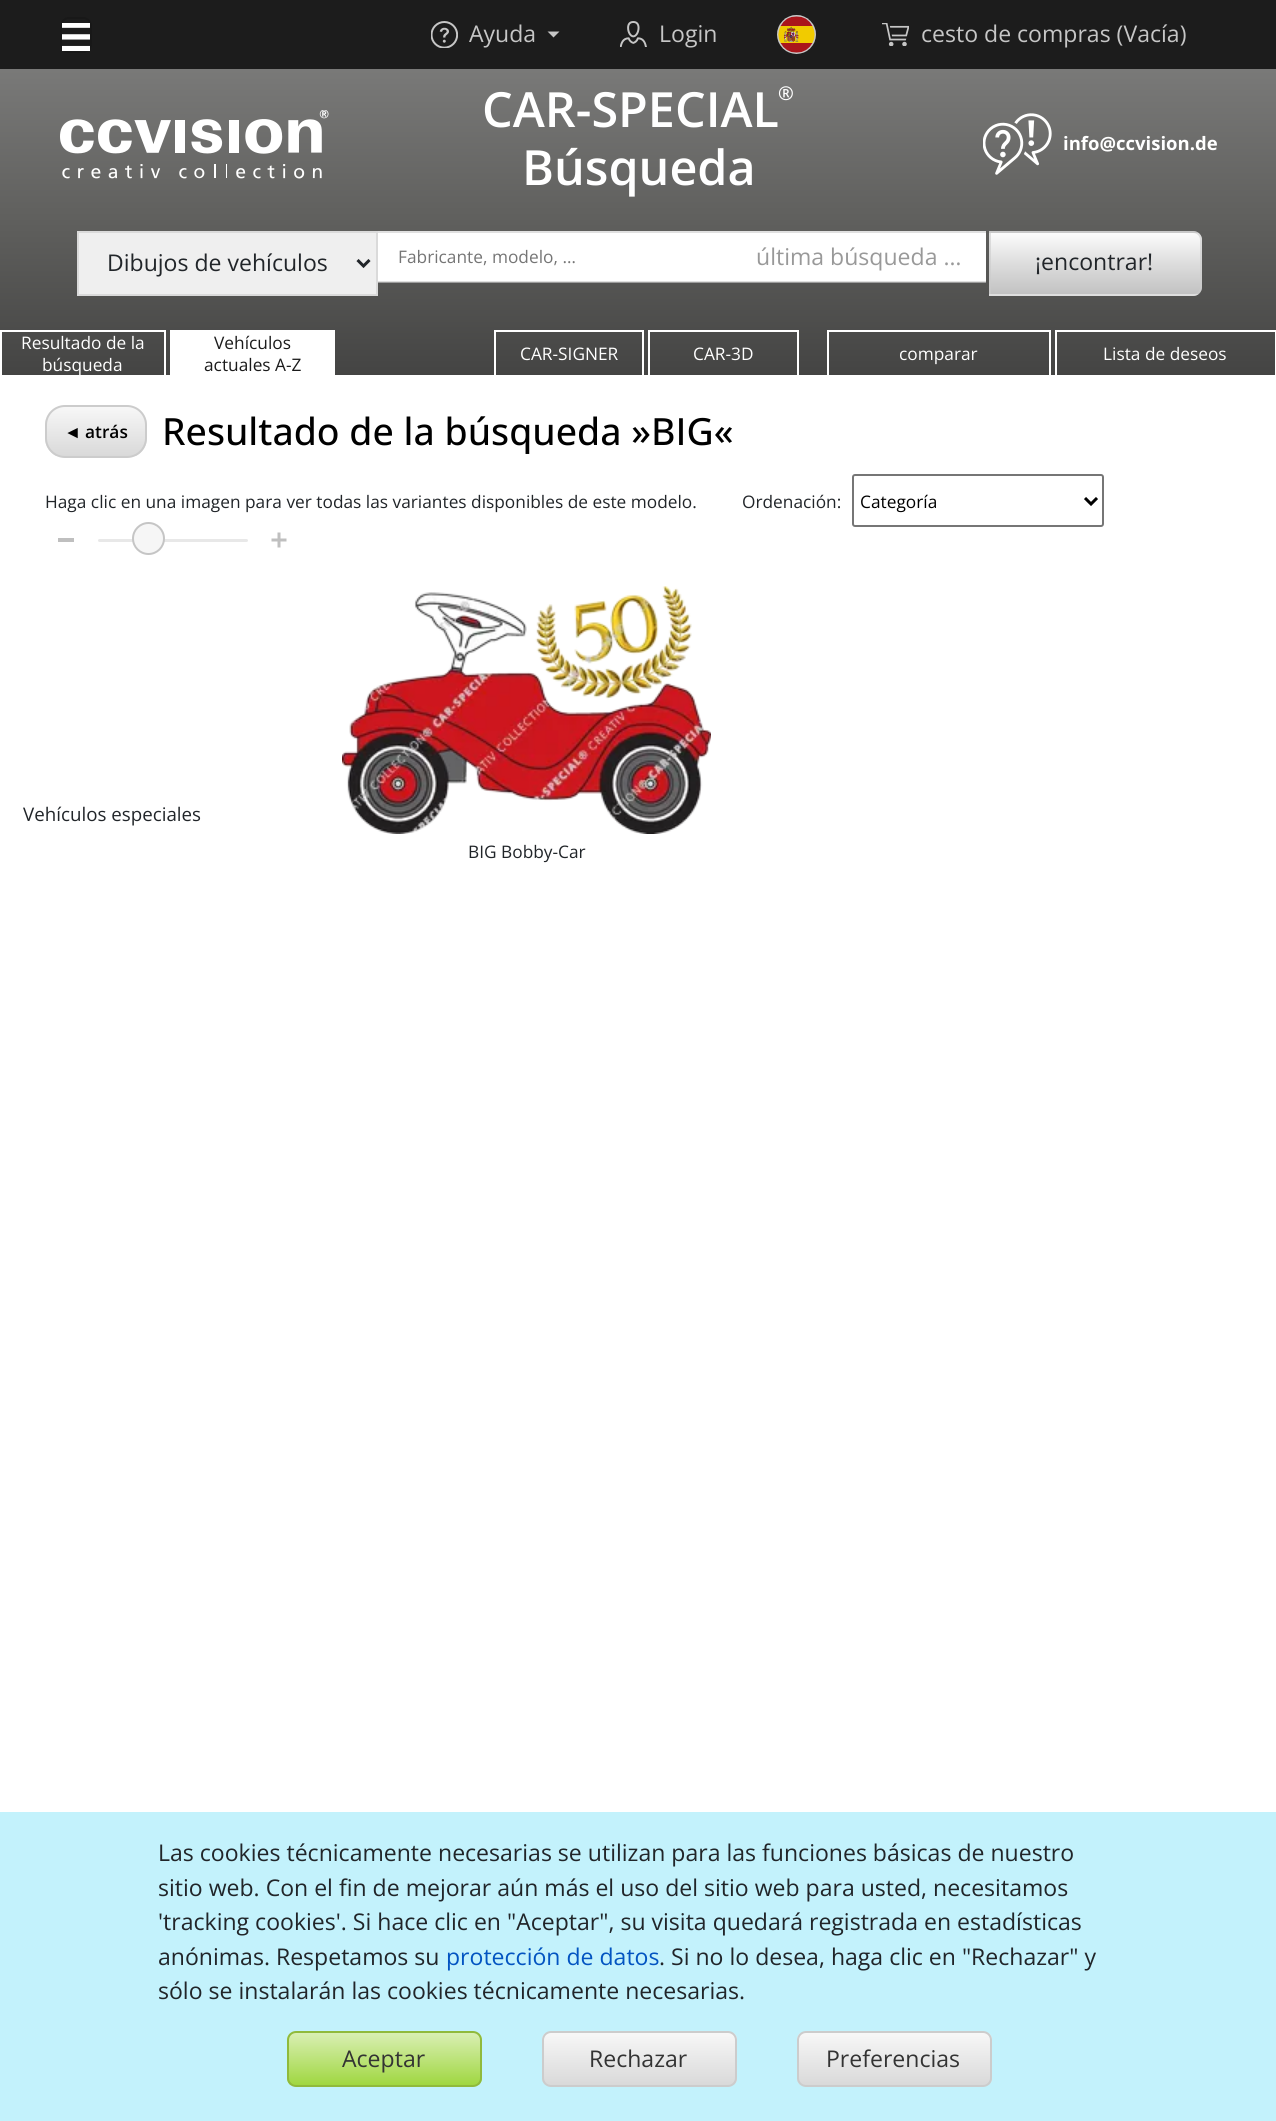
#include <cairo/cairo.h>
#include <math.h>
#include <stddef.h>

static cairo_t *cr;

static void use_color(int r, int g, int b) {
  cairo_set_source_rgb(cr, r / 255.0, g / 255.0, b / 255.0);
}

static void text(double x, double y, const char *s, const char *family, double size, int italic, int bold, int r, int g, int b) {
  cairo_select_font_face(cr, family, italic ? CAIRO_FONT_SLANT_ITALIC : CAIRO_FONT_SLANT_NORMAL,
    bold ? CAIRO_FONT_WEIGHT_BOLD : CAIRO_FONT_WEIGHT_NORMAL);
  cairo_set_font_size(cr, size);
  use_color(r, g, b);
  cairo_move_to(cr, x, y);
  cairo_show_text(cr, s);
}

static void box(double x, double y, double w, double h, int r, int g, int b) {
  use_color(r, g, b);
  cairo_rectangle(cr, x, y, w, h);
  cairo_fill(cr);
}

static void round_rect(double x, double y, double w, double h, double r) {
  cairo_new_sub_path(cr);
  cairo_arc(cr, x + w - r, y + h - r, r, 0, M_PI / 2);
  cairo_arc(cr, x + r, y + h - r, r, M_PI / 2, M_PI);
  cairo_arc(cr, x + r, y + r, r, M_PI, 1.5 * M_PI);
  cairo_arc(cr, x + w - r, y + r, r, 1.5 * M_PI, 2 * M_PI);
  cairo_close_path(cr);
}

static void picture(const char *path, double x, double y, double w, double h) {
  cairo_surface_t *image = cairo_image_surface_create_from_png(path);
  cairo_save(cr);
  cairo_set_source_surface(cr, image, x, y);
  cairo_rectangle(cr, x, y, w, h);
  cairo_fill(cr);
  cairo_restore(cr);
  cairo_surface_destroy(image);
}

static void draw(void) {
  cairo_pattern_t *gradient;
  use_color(255, 255, 255);
  cairo_paint(cr);
  box(0, 0, 1276, 69, 28, 28, 28);
  round_rect(61, 18, 30, 34, 8);
  use_color(24, 24, 24);
  cairo_stroke(cr);
  picture("img_01.png", 62, 23, 28, 28);
  picture("img_02.png", 431, 21, 27, 27);
  use_color(198, 198, 198);
  cairo_new_path(cr);
  cairo_move_to(cr, 547.5, 31.5);
  cairo_line_to(cr, 559.5, 31.5);
  cairo_line_to(cr, 553.5, 37.5);
  cairo_close_path(cr);
  cairo_fill(cr);
  picture("img_03.png", 620, 21, 27, 26);
  picture("img_04.png", 777, 15, 39, 39);
  picture("img_05.png", 882, 23, 27, 23);
  gradient = cairo_pattern_create_linear(638, 69, 638, 375);
  cairo_pattern_add_color_stop_rgba(gradient, 0, 0.475, 0.475, 0.471, 1);
  cairo_pattern_add_color_stop_rgba(gradient, 0.5, 0.373, 0.373, 0.365, 1);
  cairo_pattern_add_color_stop_rgba(gradient, 1, 0.267, 0.267, 0.263, 1);
  cairo_set_source(cr, gradient);
  cairo_pattern_destroy(gradient);
  cairo_rectangle(cr, 0, 69, 1276, 306);
  cairo_fill(cr);
  gradient = cairo_pattern_create_linear(638, 69, 638, 375);
  cairo_pattern_add_color_stop_rgba(gradient, 0, 0.671, 0.671, 0.667, 1);
  cairo_pattern_add_color_stop_rgba(gradient, 0.5, 0.627, 0.627, 0.627, 1);
  cairo_pattern_add_color_stop_rgba(gradient, 1, 0.588, 0.588, 0.584, 1);
  cairo_set_source(cr, gradient);
  cairo_pattern_destroy(gradient);
  cairo_rectangle(cr, 378, 282, 608, 1);
  cairo_fill(cr);
  picture("img_06.png", 60, 110, 269, 69);
  picture("img_07.png", 983, 113, 69, 62);
  use_color(239, 239, 239);
  cairo_rectangle(cr, 78, 232, 299, 63);
  cairo_fill_preserve(cr);
  use_color(218, 218, 218);
  cairo_stroke(cr);
  cairo_new_path(cr);
  cairo_move_to(cr, 357.5, 260);
  cairo_line_to(cr, 363.5, 266);
  cairo_line_to(cr, 369.5, 260);
  use_color(33, 37, 41);
  cairo_set_line_width(cr, 3);
  cairo_stroke(cr);
  box(378, 233, 608, 48, 255, 255, 255);
  box(378, 281, 608, 1, 224, 224, 224);
  box(378, 231, 608, 2, 224, 224, 224);
  cairo_save(cr);
  cairo_new_path(cr);
  cairo_move_to(cr, 989, 231);
  cairo_line_to(cr, 1193, 231);
  cairo_curve_to(cr, 1198, 231, 1202, 235, 1202, 240);
  cairo_line_to(cr, 1202, 287);
  cairo_curve_to(cr, 1202, 292, 1198, 296, 1193, 296);
  cairo_line_to(cr, 989, 296);
  cairo_close_path(cr);
  cairo_clip(cr);
  gradient = cairo_pattern_create_linear(1094, 171, 1094, 233);
  cairo_pattern_add_color_stop_rgba(gradient, 0, 0.988, 0.988, 0.988, 1);
  cairo_pattern_add_color_stop_rgba(gradient, 0.5, 0.867, 0.867, 0.867, 1);
  cairo_pattern_add_color_stop_rgba(gradient, 1, 0.761, 0.761, 0.761, 1);
  cairo_set_source(cr, gradient);
  cairo_pattern_destroy(gradient);
  cairo_rectangle(cr, 989, 231, 213, 2);
  cairo_fill(cr);
  gradient = cairo_pattern_create_linear(1094, 233, 1094, 294);
  cairo_pattern_add_color_stop_rgba(gradient, 0, 0.988, 0.988, 0.988, 1);
  cairo_pattern_add_color_stop_rgba(gradient, 0.5, 0.867, 0.867, 0.867, 1);
  cairo_pattern_add_color_stop_rgba(gradient, 1, 0.761, 0.761, 0.761, 1);
  cairo_set_source(cr, gradient);
  cairo_pattern_destroy(gradient);
  cairo_rectangle(cr, 989, 233, 213, 61);
  cairo_fill(cr);
  gradient = cairo_pattern_create_linear(1094, 294, 1094, 356);
  cairo_pattern_add_color_stop_rgba(gradient, 0, 0.988, 0.988, 0.988, 1);
  cairo_pattern_add_color_stop_rgba(gradient, 0.5, 0.867, 0.867, 0.867, 1);
  cairo_pattern_add_color_stop_rgba(gradient, 1, 0.761, 0.761, 0.761, 1);
  cairo_set_source(cr, gradient);
  cairo_pattern_destroy(gradient);
  cairo_rectangle(cr, 989, 294, 213, 2);
  cairo_fill(cr);
  cairo_restore(cr);
  cairo_new_path(cr);
  cairo_move_to(cr, 990, 232);
  cairo_line_to(cr, 1193, 232);
  cairo_curve_to(cr, 1197.5, 232, 1201, 235.5, 1201, 240);
  cairo_line_to(cr, 1201, 287);
  cairo_curve_to(cr, 1201, 291.5, 1197.5, 295, 1193, 295);
  cairo_line_to(cr, 990, 295);
  cairo_close_path(cr);
  cairo_set_source_rgba(cr, 0.8, 0.8, 0.8, 0.6);
  cairo_set_line_width(cr, 2);
  cairo_stroke(cr);
  box(0, 330, 165, 2, 255, 255, 255);
  box(164, 330, 2, 48, 255, 255, 255);
  box(0, 330, 2, 48, 255, 255, 255);
  box(172, 332, 161, 43, 255, 255, 255);
  box(170, 330, 165, 2, 255, 255, 255);
  box(333, 330, 2, 48, 255, 255, 255);
  box(170, 330, 2, 48, 255, 255, 255);
  box(494, 330, 150, 2, 255, 255, 255);
  box(642, 330, 2, 48, 255, 255, 255);
  box(494, 330, 2, 48, 255, 255, 255);
  box(648, 330, 150, 2, 255, 255, 255);
  box(797, 330, 2, 48, 255, 255, 255);
  box(648, 330, 2, 48, 255, 255, 255);
  box(827, 330, 223, 2, 255, 255, 255);
  box(1049, 330, 2, 48, 255, 255, 255);
  box(827, 330, 2, 48, 255, 255, 255);
  box(1055, 330, 221, 2, 255, 255, 255);
  box(1275, 330, 1, 48, 255, 255, 255);
  box(1055, 330, 2, 48, 255, 255, 255);
  cairo_save(cr);
  round_rect(45, 405, 102, 53, 20);
  cairo_clip(cr);
  gradient = cairo_pattern_create_linear(96, 407, 96, 456);
  cairo_pattern_add_color_stop_rgba(gradient, 0, 0.969, 0.969, 0.969, 1);
  cairo_pattern_add_color_stop_rgba(gradient, 1, 0.851, 0.851, 0.851, 1);
  cairo_set_source(cr, gradient);
  cairo_pattern_destroy(gradient);
  cairo_rectangle(cr, 45, 407, 102, 49);
  cairo_fill(cr);
  cairo_restore(cr);
  round_rect(46, 406, 100, 51, 19);
  use_color(204, 204, 204);
  cairo_stroke(cr);
  round_rect(853, 475, 250, 51, 2);
  use_color(118, 118, 118);
  cairo_stroke(cr);
  cairo_new_path(cr);
  cairo_move_to(cr, 1085, 498);
  cairo_line_to(cr, 1091, 504);
  cairo_line_to(cr, 1097, 498);
  use_color(0, 0, 0);
  cairo_set_line_width(cr, 3);
  cairo_stroke(cr);
  use_color(232, 232, 232);
  round_rect(98, 539, 150, 3, 1.5);
  cairo_fill(cr);
  box(58, 538, 16, 4, 191, 191, 191);
  use_color(246, 246, 246);
  cairo_arc(cr, 148.5, 538.5, 15.5, 0, 2 * M_PI);
  cairo_fill_preserve(cr);
  use_color(197, 197, 197);
  cairo_set_line_width(cr, 2);
  cairo_stroke(cr);
  picture("img_08.png", 271, 532, 16, 16);
  picture("img_09.png", 342, 586, 369, 248);
  box(0, 1812, 1276, 309, 195, 242, 252);
  cairo_save(cr);
  round_rect(287, 2031, 195, 56, 9);
  cairo_clip(cr);
  gradient = cairo_pattern_create_linear(384, 2033, 384, 2085);
  cairo_pattern_add_color_stop_rgba(gradient, 0, 0.851, 0.937, 0.702, 1);
  cairo_pattern_add_color_stop_rgba(gradient, 1, 0.627, 0.843, 0.255, 1);
  cairo_set_source(cr, gradient);
  cairo_pattern_destroy(gradient);
  cairo_rectangle(cr, 287, 2033, 195, 52);
  cairo_fill(cr);
  cairo_restore(cr);
  round_rect(288, 2032, 193, 54, 8);
  use_color(144, 186, 60);
  cairo_stroke(cr);
  cairo_save(cr);
  round_rect(542, 2031, 195, 56, 9);
  cairo_clip(cr);
  gradient = cairo_pattern_create_linear(639, 2033, 639, 2085);
  cairo_pattern_add_color_stop_rgba(gradient, 0, 0.969, 0.969, 0.969, 1);
  cairo_pattern_add_color_stop_rgba(gradient, 1, 0.851, 0.851, 0.851, 1);
  cairo_set_source(cr, gradient);
  cairo_pattern_destroy(gradient);
  cairo_rectangle(cr, 542, 2033, 195, 52);
  cairo_fill(cr);
  cairo_restore(cr);
  round_rect(543, 2032, 193, 54, 8);
  use_color(204, 204, 204);
  cairo_stroke(cr);
  cairo_save(cr);
  round_rect(797, 2031, 195, 56, 9);
  cairo_clip(cr);
  gradient = cairo_pattern_create_linear(894, 2033, 894, 2085);
  cairo_pattern_add_color_stop_rgba(gradient, 0, 0.969, 0.969, 0.969, 1);
  cairo_pattern_add_color_stop_rgba(gradient, 1, 0.851, 0.851, 0.851, 1);
  cairo_set_source(cr, gradient);
  cairo_pattern_destroy(gradient);
  cairo_rectangle(cr, 797, 2033, 195, 52);
  cairo_fill(cr);
  cairo_restore(cr);
  round_rect(798, 2032, 193, 54, 8);
  cairo_stroke(cr);
  text(469, 42, "Ayuda", "Open Sans", 23.05, 0, 0, 198, 198, 198);
  text(659, 42, "Login", "Open Sans", 23.05, 0, 0, 198, 198, 198);
  text(921, 42, "cesto de compras (Vacía)", "Open Sans", 23.05, 0, 0, 198, 198, 198);
  text(482, 127, "CAR-SPECIAL", "Open Sans SemiBold", 48.5, 0, 0, 255, 255, 255);
  text(778, 100, "®", "Open Sans SemiBold", 19, 0, 0, 255, 255, 255);
  text(522, 185, "Búsqueda", "Open Sans SemiBold", 48.5, 0, 0, 255, 255, 255);
  text(1063, 150, "info@ccvision.de", "Open Sans", 18.5, 0, 1, 255, 255, 255);
  text(107, 271, "Dibujos de vehículos", "Open Sans", 23.05, 0, 0, 33, 37, 41);
  text(398, 263, "Fabricante, modelo, …", "Open Sans", 17.3, 0, 0, 117, 117, 117);
  text(756, 265, "última búsqueda …", "Open Sans", 23.05, 0, 0, 153, 153, 153);
  text(1035, 270, "¡encontrar!", "Open Sans", 23.05, 0, 0, 33, 37, 41);
  text(21, 349, "Resultado de la", "Open Sans", 17.3, 0, 0, 255, 255, 255);
  text(42, 371, "búsqueda", "Open Sans", 17.3, 0, 0, 255, 255, 255);
  text(214, 349, "Vehículos", "Open Sans", 17.3, 0, 0, 27, 27, 27);
  text(204, 371, "actuales A-Z", "Open Sans", 17.3, 0, 0, 27, 27, 27);
  text(520, 360, "CAR-SIGNER", "Open Sans", 17.3, 0, 0, 255, 255, 255);
  text(693, 360, "CAR-3D", "Open Sans", 17.3, 0, 0, 255, 255, 255);
  text(899, 360, "comparar", "Open Sans", 17.3, 0, 0, 255, 255, 255);
  text(1103, 360, "Lista de deseos", "Open Sans", 17.3, 0, 0, 255, 255, 255);
  text(64, 438, "◄", "Liberation Sans", 17.3, 0, 1, 0, 0, 0);
  text(85, 438, "atrás", "Open Sans SemiBold", 17.3, 0, 0, 0, 0, 0);
  text(162, 445, "Resultado de la búsqueda »BIG«", "Open Sans Medium", 37.5, 0, 0, 0, 0, 0);
  text(45, 508, "Haga clic en una imagen para ver todas las variantes disponibles de este modelo.", "Open Sans", 17.3, 0, 0, 33, 37, 41);
  text(742, 508, "Ordenación:", "Open Sans", 17.3, 0, 0, 33, 37, 41);
  text(860, 508, "Categoría", "Open Sans", 17.3, 0, 0, 0, 0, 0);
  text(23, 821, "Vehículos especiales", "Open Sans", 18.75, 0, 0, 33, 37, 41);
  text(468, 858, "BIG Bobby-Car", "Open Sans", 17.3, 0, 0, 33, 37, 41);
  text(158, 1861, "Las cookies técnicamente necesarias se utilizan para las funciones básicas de nuestro", "Open Sans", 23.05, 0, 0, 33, 37, 41);
  text(158, 1896, "sitio web. Con el fin de mejorar aún más el uso del sitio web para usted, necesitamos", "Open Sans", 23.05, 0, 0, 33, 37, 41);
  text(158, 1930, "'tracking cookies'. Si hace clic en \"Aceptar\", su visita quedará registrada en estadísticas", "Open Sans", 23.05, 0, 0, 33, 37, 41);
  text(158, 1965, "anónimas. Respetamos su", "Open Sans", 23.05, 0, 0, 33, 37, 41);
  text(446, 1965, "protección de datos", "Open Sans", 23.05, 0, 0, 2, 84, 193);
  text(659, 1965, ". Si no lo desea, haga clic en \"Rechazar\" y", "Open Sans", 23.05, 0, 0, 33, 37, 41);
  text(158, 1999, "sólo se instalarán las cookies técnicamente necesarias.", "Open Sans", 23.05, 0, 0, 33, 37, 41);
  text(342, 2067, "Aceptar", "Open Sans", 23.05, 0, 0, 51, 51, 51);
  text(589, 2067, "Rechazar", "Open Sans", 23.05, 0, 0, 51, 51, 51);
  text(826, 2067, "Preferencias", "Open Sans", 23.05, 0, 0, 51, 51, 51);
}

int main(void) {
  cairo_surface_t *surface = cairo_image_surface_create(CAIRO_FORMAT_RGB24, 1276, 2121);
  cr = cairo_create(surface);
  cairo_font_options_t *options = cairo_font_options_create();
  cairo_font_options_set_hint_metrics(options, CAIRO_HINT_METRICS_OFF);
  cairo_font_options_set_hint_style(options, CAIRO_HINT_STYLE_NONE);
  cairo_set_font_options(cr, options);
  cairo_set_miter_limit(cr, 4);
  draw();
  cairo_surface_write_to_png(surface, "out.png");
  cairo_font_options_destroy(options);
  cairo_destroy(cr);
  cairo_surface_destroy(surface);
  return 0;
}
